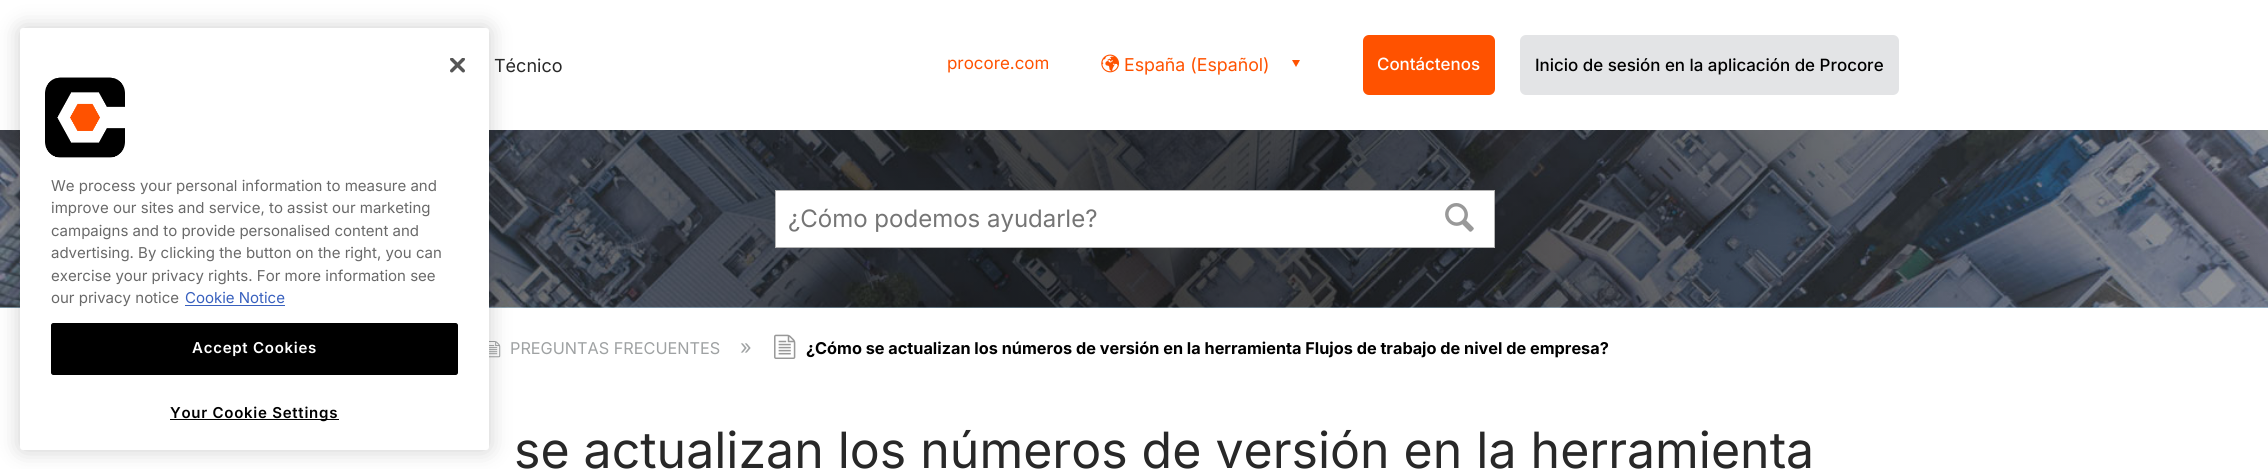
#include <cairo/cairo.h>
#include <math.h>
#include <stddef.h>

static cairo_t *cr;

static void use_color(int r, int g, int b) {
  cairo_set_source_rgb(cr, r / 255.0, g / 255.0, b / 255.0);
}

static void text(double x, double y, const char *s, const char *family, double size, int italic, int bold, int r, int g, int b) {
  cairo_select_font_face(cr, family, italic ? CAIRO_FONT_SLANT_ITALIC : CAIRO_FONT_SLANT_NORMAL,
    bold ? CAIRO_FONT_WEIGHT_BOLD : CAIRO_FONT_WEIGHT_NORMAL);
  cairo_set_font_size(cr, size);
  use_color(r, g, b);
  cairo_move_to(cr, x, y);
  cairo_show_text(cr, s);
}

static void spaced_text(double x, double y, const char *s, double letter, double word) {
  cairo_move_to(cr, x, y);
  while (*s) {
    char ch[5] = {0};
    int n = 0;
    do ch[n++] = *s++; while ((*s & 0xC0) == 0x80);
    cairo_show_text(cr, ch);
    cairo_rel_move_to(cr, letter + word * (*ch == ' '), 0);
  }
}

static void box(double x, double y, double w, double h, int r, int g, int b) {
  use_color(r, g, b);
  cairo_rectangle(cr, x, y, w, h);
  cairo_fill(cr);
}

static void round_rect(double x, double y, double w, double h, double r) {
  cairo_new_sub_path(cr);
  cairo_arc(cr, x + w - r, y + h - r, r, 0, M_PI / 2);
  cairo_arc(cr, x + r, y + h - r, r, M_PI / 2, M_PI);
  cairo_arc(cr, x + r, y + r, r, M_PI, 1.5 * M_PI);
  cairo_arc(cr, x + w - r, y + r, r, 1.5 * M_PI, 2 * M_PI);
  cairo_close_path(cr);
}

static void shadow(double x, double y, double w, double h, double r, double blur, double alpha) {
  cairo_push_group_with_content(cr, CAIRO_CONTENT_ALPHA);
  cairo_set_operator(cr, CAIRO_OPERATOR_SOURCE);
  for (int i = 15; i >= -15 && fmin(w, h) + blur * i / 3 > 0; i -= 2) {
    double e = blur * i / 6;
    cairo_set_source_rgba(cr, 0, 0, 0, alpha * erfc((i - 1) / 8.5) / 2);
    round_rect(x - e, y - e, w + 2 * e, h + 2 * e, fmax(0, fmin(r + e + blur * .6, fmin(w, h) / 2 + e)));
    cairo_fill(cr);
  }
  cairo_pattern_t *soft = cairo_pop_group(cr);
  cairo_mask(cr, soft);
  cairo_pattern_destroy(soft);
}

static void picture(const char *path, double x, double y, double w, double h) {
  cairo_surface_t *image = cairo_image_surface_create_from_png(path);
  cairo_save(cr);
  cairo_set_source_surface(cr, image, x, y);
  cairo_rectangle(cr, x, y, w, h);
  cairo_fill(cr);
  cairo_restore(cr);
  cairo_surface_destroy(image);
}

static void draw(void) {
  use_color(255, 255, 255);
  cairo_paint(cr);
  box(0, 307, 2268, 1, 183, 229, 252);
  picture("img_04.png", 0, 130, 2268, 178);
  picture("img_06.png", 489, 341, 12, 17);
  use_color(0, 0, 0);
  shadow(20, 28, 469, 422, 3, 11, 0.2);
  use_color(255, 255, 255);
  round_rect(20, 28, 469, 422, 3);
  cairo_fill(cr);
  picture("img_01.png", 450, 58, 15, 15);
  picture("img_02.png", 45, 77, 80, 81);
  box(185, 305, 100, 1, 56, 96, 190);
  use_color(0, 0, 0);
  round_rect(51.5, 323.5, 406, 51, 2);
  cairo_fill_preserve(cr);
  cairo_set_line_width(cr, 1);
  cairo_stroke(cr);
  box(170, 419, 169, 1, 0, 0, 0);
  picture("img_03.png", 1101, 54, 19, 19);
  use_color(255, 82, 0);
  cairo_new_path(cr);
  cairo_move_to(cr, 1300, 60);
  cairo_line_to(cr, 1292, 60);
  cairo_line_to(cr, 1296, 67);
  cairo_close_path(cr);
  cairo_fill(cr);
  round_rect(1363, 35, 132, 60, 6);
  cairo_fill(cr);
  use_color(227, 228, 230);
  round_rect(1520, 35, 379, 60, 6);
  cairo_fill(cr);
  use_color(255, 255, 255);
  cairo_rectangle(cr, 775.5, 190.5, 719, 57);
  cairo_fill_preserve(cr);
  use_color(180, 180, 180);
  cairo_stroke(cr);
  picture("img_05.png", 1445, 203, 29, 29);
  picture("img_07.png", 774, 334, 22, 25);
  text(51, 191, "We process your personal information to measure and", "Inter", 15, 0, 0, 105, 105, 105);
  text(51, 213, "improve our sites and service, to assist our marketing", "Inter", 15, 0, 0, 105, 105, 105);
  text(51, 236, "campaigns and to provide personalised content and", "Inter", 15, 0, 0, 105, 105, 105);
  text(51, 258, "advertising. By clicking the button on the right, you can", "Inter", 15, 0, 0, 105, 105, 105);
  text(51, 281, "exercise your privacy rights. For more information see", "Inter", 15, 0, 0, 105, 105, 105);
  text(51, 303, "our privacy notice", "Inter", 15, 0, 0, 105, 105, 105);
  text(185, 303, "Cookie Notice", "Inter", 15, 0, 0, 56, 96, 190);
  cairo_select_font_face(cr, "Inter SemiBold", CAIRO_FONT_SLANT_NORMAL, CAIRO_FONT_WEIGHT_NORMAL);
  use_color(255, 255, 255);
  spaced_text(192, 353, "Accept Cookies", 0.75, 0);
  use_color(0, 0, 0);
  spaced_text(170, 418, "Your Cookie Settings", 0.75, 0);
  text(494, 72, "Técnico", "Inter", 18, 0, 0, 40, 40, 40);
  text(947, 69, "procore.com", "Inter", 16.9, 0, 0, 255, 82, 0);
  text(1124, 71, "España (Español)", "Inter", 17.75, 0, 0, 255, 82, 0);
  text(1377, 70, "Contáctenos", "Inter Medium", 16.9, 0, 0, 255, 255, 255);
  text(1535, 71, "Inicio de sesión en la aplicación de Procore", "Inter Medium", 16.9, 0, 0, 0, 0, 0);
  text(788, 227, "¿Cómo podemos ayudarle?", "Inter", 24, 0, 0, 117, 117, 117);
  text(510, 354, "PREGUNTAS FRECUENTES", "Inter", 16.25, 0, 0, 159, 162, 163);
  text(740, 354, "»", "Inter", 20, 0, 0, 159, 162, 163);
  text(806, 354, "¿Cómo se actualizan los números de versión en la herramienta Flujos de trabajo de nivel de empresa?", "Inter", 16.25, 0, 1, 0, 0, 0);
  text(514, 468, "se actualizan los números de versión en la herramienta", "Inter", 50, 0, 0, 40, 40, 40);
}

int main(void) {
  cairo_surface_t *surface = cairo_image_surface_create(CAIRO_FORMAT_RGB24, 2268, 469);
  cr = cairo_create(surface);
  cairo_font_options_t *options = cairo_font_options_create();
  cairo_font_options_set_hint_metrics(options, CAIRO_HINT_METRICS_OFF);
  cairo_font_options_set_hint_style(options, CAIRO_HINT_STYLE_NONE);
  cairo_set_font_options(cr, options);
  cairo_set_miter_limit(cr, 4);
  draw();
  cairo_surface_write_to_png(surface, "out.png");
  cairo_font_options_destroy(options);
  cairo_destroy(cr);
  cairo_surface_destroy(surface);
  return 0;
}
